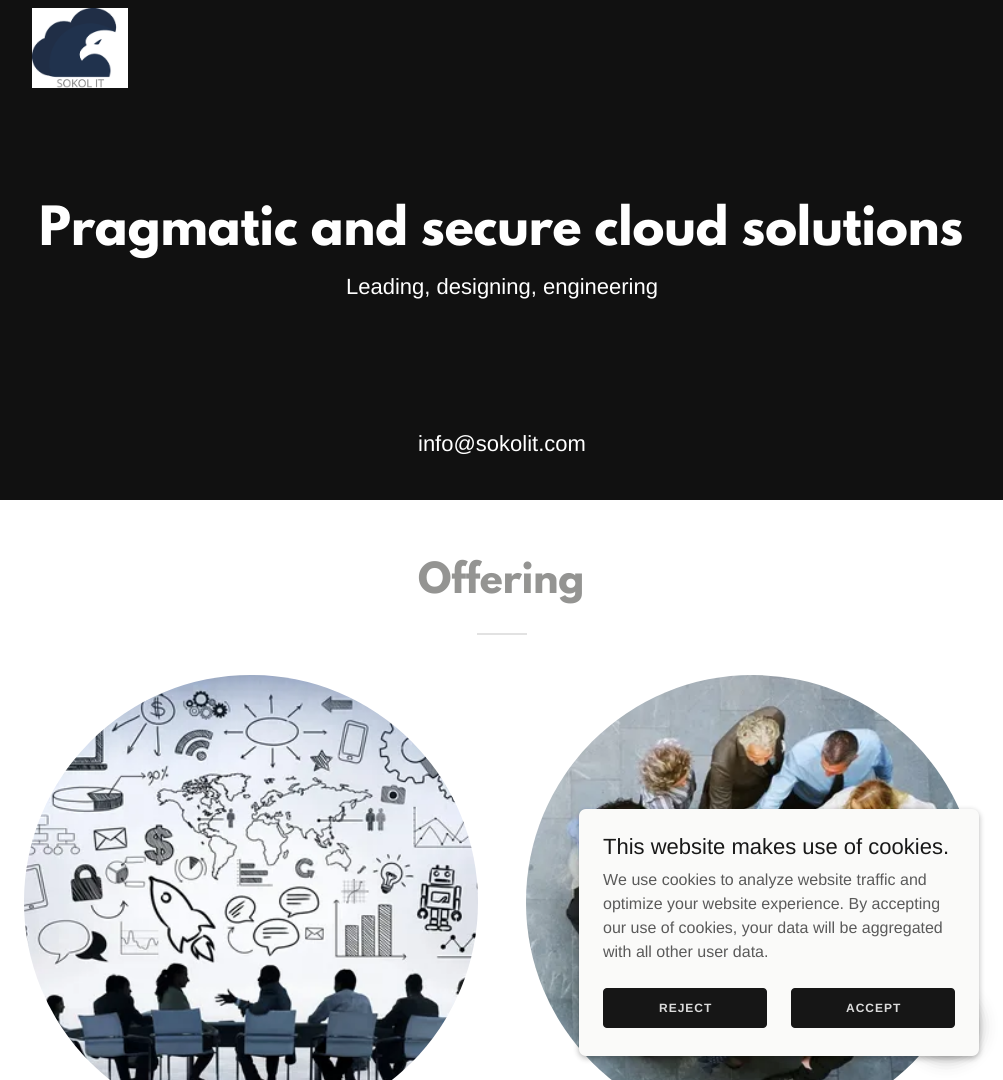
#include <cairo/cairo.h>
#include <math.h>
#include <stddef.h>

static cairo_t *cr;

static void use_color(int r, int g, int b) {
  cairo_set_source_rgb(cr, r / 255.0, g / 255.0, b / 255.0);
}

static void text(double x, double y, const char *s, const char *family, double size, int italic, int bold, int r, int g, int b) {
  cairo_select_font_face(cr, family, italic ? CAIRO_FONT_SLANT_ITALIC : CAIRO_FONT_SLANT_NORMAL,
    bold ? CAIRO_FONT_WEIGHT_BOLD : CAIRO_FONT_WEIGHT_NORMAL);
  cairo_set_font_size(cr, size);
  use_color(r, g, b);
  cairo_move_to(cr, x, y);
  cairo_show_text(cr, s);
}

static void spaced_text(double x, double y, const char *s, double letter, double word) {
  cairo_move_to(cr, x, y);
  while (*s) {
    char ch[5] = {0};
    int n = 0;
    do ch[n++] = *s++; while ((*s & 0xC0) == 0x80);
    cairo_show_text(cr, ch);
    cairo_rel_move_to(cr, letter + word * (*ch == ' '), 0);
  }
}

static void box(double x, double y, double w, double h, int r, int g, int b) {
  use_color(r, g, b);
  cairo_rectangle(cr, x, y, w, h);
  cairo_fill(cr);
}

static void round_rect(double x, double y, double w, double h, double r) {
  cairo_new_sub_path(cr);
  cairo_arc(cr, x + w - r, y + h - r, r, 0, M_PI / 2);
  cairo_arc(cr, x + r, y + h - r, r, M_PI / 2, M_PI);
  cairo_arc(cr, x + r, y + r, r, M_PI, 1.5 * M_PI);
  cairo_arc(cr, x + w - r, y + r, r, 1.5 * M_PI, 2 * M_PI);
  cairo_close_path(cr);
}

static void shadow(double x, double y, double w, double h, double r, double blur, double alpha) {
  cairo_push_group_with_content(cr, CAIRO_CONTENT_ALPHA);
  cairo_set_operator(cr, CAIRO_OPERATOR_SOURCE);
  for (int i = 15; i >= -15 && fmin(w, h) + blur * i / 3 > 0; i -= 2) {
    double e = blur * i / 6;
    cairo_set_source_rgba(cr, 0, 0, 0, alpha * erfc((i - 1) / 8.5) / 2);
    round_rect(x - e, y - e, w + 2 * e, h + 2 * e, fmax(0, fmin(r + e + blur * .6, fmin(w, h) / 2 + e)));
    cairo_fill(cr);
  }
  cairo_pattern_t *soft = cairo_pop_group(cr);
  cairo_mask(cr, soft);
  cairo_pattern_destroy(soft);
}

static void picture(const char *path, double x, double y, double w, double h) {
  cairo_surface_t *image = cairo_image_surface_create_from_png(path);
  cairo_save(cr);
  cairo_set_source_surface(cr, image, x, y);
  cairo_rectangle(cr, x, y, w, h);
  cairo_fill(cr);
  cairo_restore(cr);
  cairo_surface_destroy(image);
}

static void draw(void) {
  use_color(255, 255, 255);
  cairo_paint(cr);
  box(0, 0, 1003, 500, 17, 17, 17);
  picture("img_01.png", 32, 8, 96, 80);
  box(477, 633, 50, 2, 226, 226, 226);
  picture("img_02.png", 24, 675, 454, 405);
  picture("img_03.png", 526, 675, 434, 405);
  use_color(0, 0, 0);
  shadow(579, 811, 400, 247, 7, 3, 0.3);
  shadow(914, 994, 65, 65, 32.5, 9, 0.25);
  use_color(250, 250, 249);
  round_rect(579, 809, 400, 247, 7);
  cairo_fill(cr);
  use_color(22, 22, 22);
  round_rect(603, 988, 164, 40, 4);
  cairo_fill(cr);
  round_rect(791, 988, 164, 40, 4);
  cairo_fill(cr);
  text(39, 245, "Pragmatic and secure cloud solutions", "League Spartan", 48, 0, 1, 255, 255, 255);
  text(346, 294, "Leading, designing, engineering", "Liberation Sans", 22, 0, 0, 255, 255, 255);
  text(418, 451, "info@sokolit.com", "Liberation Sans", 22, 0, 0, 255, 255, 255);
  text(418, 593, "Offering", "League Spartan", 38, 0, 1, 148, 148, 146);
  text(603, 854, "This website makes use of cookies.", "Liberation Sans", 22, 0, 0, 24, 24, 24);
  text(603, 885, "We use cookies to analyze website traffic and", "Liberation Sans", 16, 0, 0, 90, 90, 90);
  text(603, 909, "optimize your website experience. By accepting", "Liberation Sans", 16, 0, 0, 90, 90, 90);
  text(603, 933, "our use of cookies, your data will be aggregated", "Liberation Sans", 16, 0, 0, 90, 90, 90);
  text(603, 957, "with all other user data.", "Liberation Sans", 16, 0, 0, 90, 90, 90);
  cairo_select_font_face(cr, "Liberation Sans", CAIRO_FONT_SLANT_NORMAL, CAIRO_FONT_WEIGHT_BOLD);
  cairo_set_font_size(cr, 12);
  use_color(219, 219, 219);
  spaced_text(659, 1012, "REJECT", 1, 0);
  spaced_text(846, 1012, "ACCEPT", 1, 0);
}

int main(void) {
  cairo_surface_t *surface = cairo_image_surface_create(CAIRO_FORMAT_RGB24, 1003, 1080);
  cr = cairo_create(surface);
  cairo_font_options_t *options = cairo_font_options_create();
  cairo_font_options_set_hint_metrics(options, CAIRO_HINT_METRICS_OFF);
  cairo_font_options_set_hint_style(options, CAIRO_HINT_STYLE_NONE);
  cairo_set_font_options(cr, options);
  cairo_set_miter_limit(cr, 4);
  draw();
  cairo_surface_write_to_png(surface, "out.png");
  cairo_font_options_destroy(options);
  cairo_destroy(cr);
  cairo_surface_destroy(surface);
  return 0;
}
